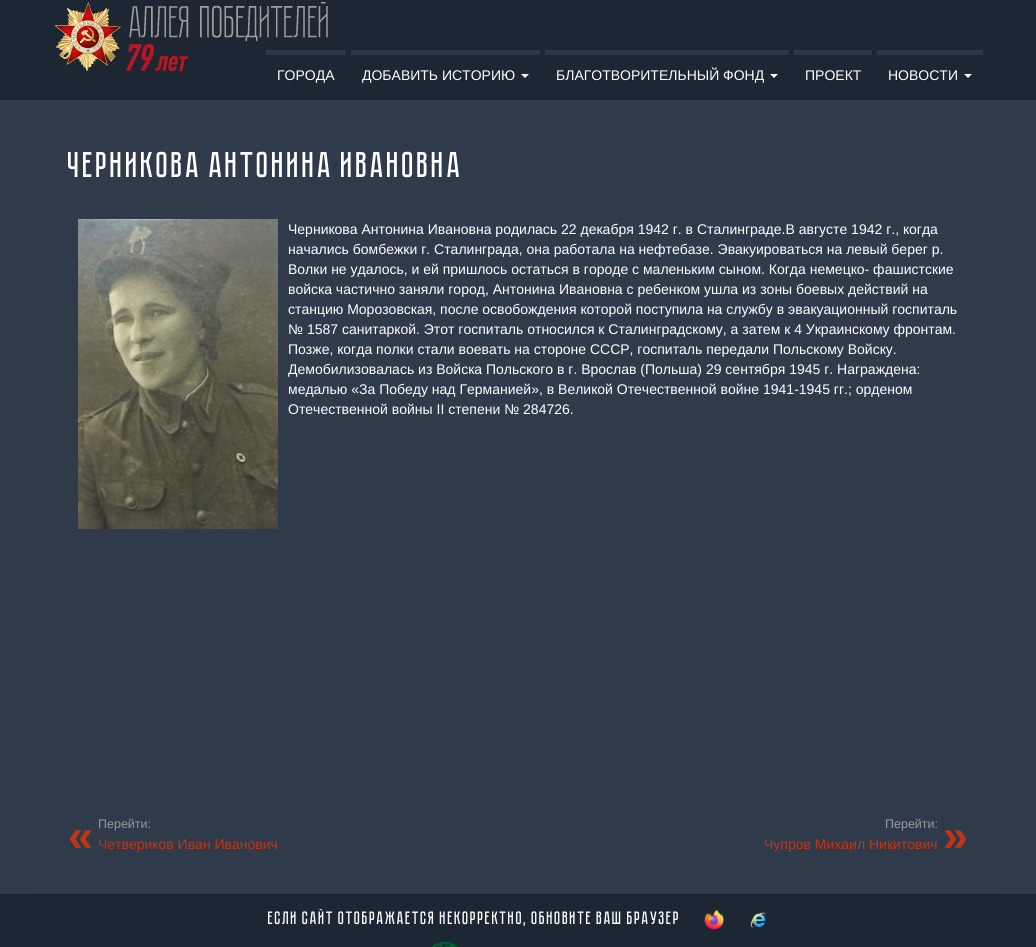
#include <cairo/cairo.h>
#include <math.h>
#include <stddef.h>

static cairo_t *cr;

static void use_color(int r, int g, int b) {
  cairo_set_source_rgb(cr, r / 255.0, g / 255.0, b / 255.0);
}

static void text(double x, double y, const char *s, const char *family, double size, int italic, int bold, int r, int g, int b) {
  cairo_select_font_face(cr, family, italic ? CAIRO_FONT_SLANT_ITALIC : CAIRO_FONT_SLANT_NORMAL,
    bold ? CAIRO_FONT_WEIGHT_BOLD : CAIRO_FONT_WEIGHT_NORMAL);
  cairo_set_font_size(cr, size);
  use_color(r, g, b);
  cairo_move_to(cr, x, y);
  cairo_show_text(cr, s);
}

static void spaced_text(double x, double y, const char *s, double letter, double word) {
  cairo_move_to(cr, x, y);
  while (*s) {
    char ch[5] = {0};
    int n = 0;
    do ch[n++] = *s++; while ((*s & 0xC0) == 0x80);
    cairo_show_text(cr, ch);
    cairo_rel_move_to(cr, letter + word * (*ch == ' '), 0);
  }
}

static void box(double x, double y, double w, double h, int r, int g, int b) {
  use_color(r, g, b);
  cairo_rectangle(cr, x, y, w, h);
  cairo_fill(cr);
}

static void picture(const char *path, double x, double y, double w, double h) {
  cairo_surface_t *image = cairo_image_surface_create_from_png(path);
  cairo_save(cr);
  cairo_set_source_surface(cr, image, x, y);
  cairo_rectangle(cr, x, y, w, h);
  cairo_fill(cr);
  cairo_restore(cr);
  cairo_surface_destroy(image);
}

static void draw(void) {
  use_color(47, 59, 75);
  cairo_paint(cr);
  box(0, 0, 1036, 100, 29, 38, 51);
  picture("img_01.png", 54, 2, 274, 69);
  box(266, 50, 80, 5, 45, 57, 73);
  box(351, 50, 189, 5, 45, 57, 73);
  use_color(255, 255, 255);
  cairo_new_path(cr);
  cairo_move_to(cr, 521, 74);
  cairo_line_to(cr, 529, 74);
  cairo_line_to(cr, 525, 78);
  cairo_close_path(cr);
  cairo_fill(cr);
  box(545, 50, 244, 5, 45, 57, 73);
  use_color(255, 255, 255);
  cairo_new_path(cr);
  cairo_move_to(cr, 770, 74);
  cairo_line_to(cr, 778, 74);
  cairo_line_to(cr, 774, 78);
  cairo_close_path(cr);
  cairo_fill(cr);
  box(794, 50, 78, 5, 45, 57, 73);
  box(877, 50, 106, 5, 45, 57, 73);
  use_color(255, 255, 255);
  cairo_new_path(cr);
  cairo_move_to(cr, 964, 74);
  cairo_line_to(cr, 972, 74);
  cairo_line_to(cr, 968, 78);
  cairo_close_path(cr);
  cairo_fill(cr);
  picture("img_02.png", 78, 219, 200, 310);
  box(0, 894, 1036, 53, 29, 38, 51);
  box(33, 894, 970, 1, 22, 29, 38);
  picture("img_03.png", 704, 910, 20, 20);
  picture("img_04.png", 750, 912, 16, 16);
  picture("img_05.png", 431, 941, 102, 6);
  text(277, 80, "ГОРОДА", "Liberation Sans", 14, 0, 0, 255, 255, 255);
  text(362, 80, "ДОБАВИТЬ ИСТОРИЮ", "Liberation Sans", 14, 0, 0, 255, 255, 255);
  text(556, 80, "БЛАГОТВОРИТЕЛЬНЫЙ ФОНД", "Liberation Sans", 14, 0, 0, 255, 255, 255);
  text(805, 80, "ПРОЕКТ", "Liberation Sans", 14, 0, 0, 255, 255, 255);
  text(888, 80, "НОВОСТИ", "Liberation Sans", 14, 0, 0, 255, 255, 255);
  cairo_select_font_face(cr, "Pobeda", CAIRO_FONT_SLANT_NORMAL, CAIRO_FONT_WEIGHT_BOLD);
  cairo_set_font_size(cr, 36);
  spaced_text(68, 177, "ЧЕРНИКОВА АНТОНИНА ИВАНОВНА", 0.5, 0);
  text(288, 234, "Черникова Антонина Ивановна родилась 22 декабря 1942 г. в Сталинграде.В августе 1942 г., когда", "Liberation Sans", 14, 0, 0, 255, 255, 255);
  text(288, 254, "начались бомбежки г. Сталинграда, она работала на нефтебазе. Эвакуироваться на левый берег р.", "Liberation Sans", 14, 0, 0, 255, 255, 255);
  text(288, 274, "Волки не удалось, и ей пришлось остаться в городе с маленьким сыном. Когда немецко- фашистские", "Liberation Sans", 14, 0, 0, 255, 255, 255);
  text(288, 294, "войска частично заняли город, Антонина Ивановна с ребенком ушла из зоны боевых действий на", "Liberation Sans", 14, 0, 0, 255, 255, 255);
  text(288, 314, "станцию Морозовская, после освобождения которой поступила на службу в эвакуационный госпиталь", "Liberation Sans", 14, 0, 0, 255, 255, 255);
  text(288, 334, "№ 1587 санитаркой. Этот госпиталь относился к Сталинградскому, а затем к 4 Украинскому фронтам.", "Liberation Sans", 14, 0, 0, 255, 255, 255);
  text(288, 354, "Позже, когда полки стали воевать на стороне СССР, госпиталь передали Польскому Войску.", "Liberation Sans", 14, 0, 0, 255, 255, 255);
  text(288, 374, "Демобилизовалась из Войска Польского в г. Врослав (Польша) 29 сентября 1945 г. Награждена:", "Liberation Sans", 14, 0, 0, 255, 255, 255);
  text(288, 394, "медалью «За Победу над Германией», в Великой Отечественной войне 1941-1945 гг.; орденом", "Liberation Sans", 14, 0, 0, 255, 255, 255);
  text(288, 414, "Отечественной войны II степени № 284726.", "Liberation Sans", 14, 0, 0, 255, 255, 255);
  text(98, 828, "Перейти:", "Liberation Sans", 12.5, 0, 0, 153, 153, 153);
  text(68, 851, "«", "Liberation Sans", 45, 0, 1, 195, 52, 20);
  text(98, 849, "Четвериков Иван Иванович", "Liberation Sans", 14, 0, 0, 195, 52, 20);
  text(885, 828, "Перейти:", "Liberation Sans", 12.5, 0, 0, 153, 153, 153);
  text(764, 849, "Чупров Михаил Никитович", "Liberation Sans", 14, 0, 0, 195, 52, 20);
  text(943, 851, "»", "Liberation Sans", 45, 0, 1, 195, 52, 20);
  cairo_select_font_face(cr, "Pobeda", CAIRO_FONT_SLANT_NORMAL, CAIRO_FONT_WEIGHT_BOLD);
  cairo_set_font_size(cr, 18);
  use_color(255, 255, 255);
  spaced_text(268, 924, "Если сайт отображается некорректно, обновите ваш браузер", 0.5, 0);
}

int main(void) {
  cairo_surface_t *surface = cairo_image_surface_create(CAIRO_FORMAT_RGB24, 1036, 947);
  cr = cairo_create(surface);
  cairo_font_options_t *options = cairo_font_options_create();
  cairo_font_options_set_hint_metrics(options, CAIRO_HINT_METRICS_OFF);
  cairo_font_options_set_hint_style(options, CAIRO_HINT_STYLE_NONE);
  cairo_set_font_options(cr, options);
  cairo_set_miter_limit(cr, 4);
  draw();
  cairo_surface_write_to_png(surface, "out.png");
  cairo_font_options_destroy(options);
  cairo_destroy(cr);
  cairo_surface_destroy(surface);
  return 0;
}
